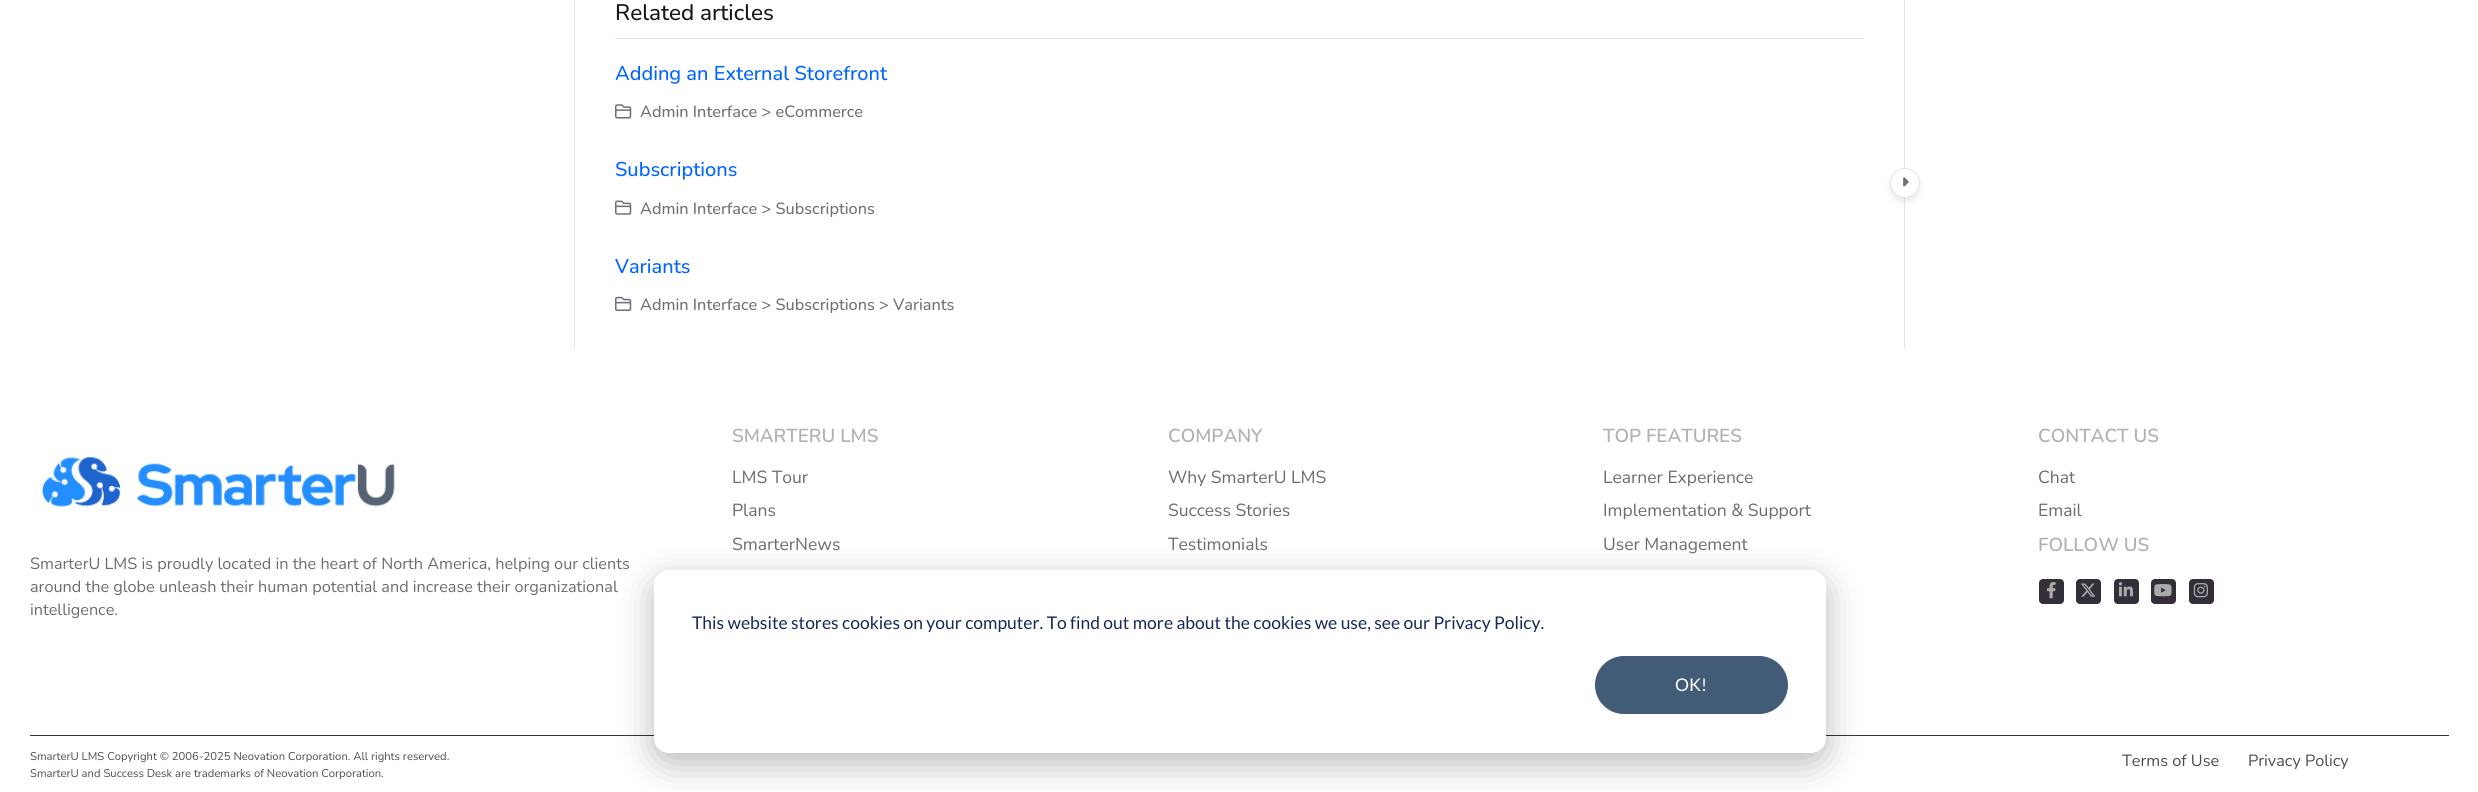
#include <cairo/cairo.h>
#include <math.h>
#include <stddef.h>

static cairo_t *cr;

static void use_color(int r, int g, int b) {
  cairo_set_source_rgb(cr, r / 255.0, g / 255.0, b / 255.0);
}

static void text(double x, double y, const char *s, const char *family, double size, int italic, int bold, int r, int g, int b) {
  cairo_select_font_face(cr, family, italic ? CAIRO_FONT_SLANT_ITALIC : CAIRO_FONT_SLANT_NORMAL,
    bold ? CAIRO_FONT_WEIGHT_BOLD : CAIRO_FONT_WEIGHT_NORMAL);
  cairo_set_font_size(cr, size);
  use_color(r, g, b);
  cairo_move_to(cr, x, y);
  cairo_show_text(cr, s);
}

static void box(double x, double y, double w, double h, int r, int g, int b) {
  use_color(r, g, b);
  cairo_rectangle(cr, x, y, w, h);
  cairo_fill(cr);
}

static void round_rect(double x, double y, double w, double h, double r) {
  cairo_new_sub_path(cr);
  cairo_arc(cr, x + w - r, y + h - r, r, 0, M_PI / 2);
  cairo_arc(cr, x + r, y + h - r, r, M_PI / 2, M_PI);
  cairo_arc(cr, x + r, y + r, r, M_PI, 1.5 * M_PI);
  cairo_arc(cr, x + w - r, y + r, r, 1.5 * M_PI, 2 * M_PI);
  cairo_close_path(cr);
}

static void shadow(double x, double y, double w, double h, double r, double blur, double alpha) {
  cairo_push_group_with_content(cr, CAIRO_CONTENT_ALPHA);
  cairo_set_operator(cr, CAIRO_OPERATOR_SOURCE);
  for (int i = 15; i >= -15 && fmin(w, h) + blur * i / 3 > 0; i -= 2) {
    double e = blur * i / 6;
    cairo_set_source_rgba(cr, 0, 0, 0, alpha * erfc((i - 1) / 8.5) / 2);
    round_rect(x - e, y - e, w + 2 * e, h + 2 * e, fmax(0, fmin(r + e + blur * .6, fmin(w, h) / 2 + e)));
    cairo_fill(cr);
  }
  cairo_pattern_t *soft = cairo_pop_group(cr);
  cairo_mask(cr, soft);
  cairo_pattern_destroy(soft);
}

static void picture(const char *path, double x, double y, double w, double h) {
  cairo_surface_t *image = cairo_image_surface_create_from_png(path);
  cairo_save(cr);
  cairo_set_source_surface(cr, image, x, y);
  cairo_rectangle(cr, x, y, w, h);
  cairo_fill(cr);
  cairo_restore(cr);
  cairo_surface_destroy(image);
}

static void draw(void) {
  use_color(255, 255, 255);
  cairo_paint(cr);
  box(574, 0, 1, 348, 228, 228, 231);
  box(615, 38, 1249, 1, 228, 228, 231);
  picture("img_01.png", 615, 104, 17, 15);
  picture("img_02.png", 615, 200, 17, 15);
  picture("img_03.png", 615, 296, 17, 15);
  box(1904, 0, 1, 348, 228, 228, 231);
  use_color(0, 0, 0);
  shadow(1891, 174, 28, 27, 13.5, 4, 0.1);
  use_color(255, 255, 255);
  cairo_arc(cr, 1905, 183, 14.5, 0, 2 * M_PI);
  cairo_fill_preserve(cr);
  use_color(228, 228, 231);
  cairo_set_line_width(cr, 1);
  cairo_stroke(cr);
  picture("img_04.png", 1903, 177, 6, 10);
  use_color(52, 46, 56);
  round_rect(2039, 579, 25, 25, 4);
  cairo_fill(cr);
  picture("img_05.png", 2047, 582, 9, 17);
  round_rect(2076, 579, 25, 25, 4);
  cairo_fill(cr);
  picture("img_06.png", 2081, 583, 15, 14);
  round_rect(2114, 579, 25, 25, 4);
  cairo_fill(cr);
  picture("img_07.png", 2118, 582, 15, 15);
  round_rect(2151, 579, 25, 25, 4);
  cairo_fill(cr);
  picture("img_08.png", 2154, 584, 18, 13);
  round_rect(2189, 579, 25, 25, 4);
  cairo_fill(cr);
  picture("img_09.png", 2193, 583, 15, 15);
  picture("img_10.png", 41, 457, 354, 50);
  box(30, 735, 2419, 1, 56, 53, 58);
  use_color(0, 0, 0);
  shadow(654, 580, 1172, 183, 15, 17.5, 0.28);
  use_color(255, 255, 255);
  round_rect(654, 570, 1172, 183, 15);
  cairo_fill(cr);
  use_color(66, 91, 118);
  round_rect(1595.5, 656.5, 192, 57, 28.5);
  cairo_fill_preserve(cr);
  cairo_stroke(cr);
  text(615, 20, "Related articles", "Nunito Medium", 22.5, 0, 0, 24, 24, 27);
  text(615, 80, "Adding an External Storefront", "Nunito Medium", 20, 0, 0, 0, 101, 255);
  text(640, 117, "Admin Interface > eCommerce", "Nunito Medium", 16.25, 0, 0, 112, 112, 122);
  text(615, 176, "Subscriptions", "Nunito Medium", 20, 0, 0, 0, 101, 255);
  text(640, 214, "Admin Interface > Subscriptions", "Nunito Medium", 16.25, 0, 0, 112, 112, 122);
  text(615, 273, "Variants", "Nunito Medium", 20, 0, 0, 0, 101, 255);
  text(640, 310, "Admin Interface > Subscriptions > Variants", "Nunito Medium", 16.25, 0, 0, 112, 112, 122);
  text(732, 442, "SMARTERU LMS", "Nunito SemiBold", 18.75, 0, 0, 179, 178, 179);
  text(732, 483, "LMS Tour", "Nunito", 17.5, 0, 0, 111, 105, 115);
  text(732, 516, "Plans", "Nunito", 17.5, 0, 0, 111, 105, 115);
  text(732, 550, "SmarterNews", "Nunito", 17.5, 0, 0, 111, 105, 115);
  text(1168, 442, "COMPANY", "Nunito SemiBold", 18.75, 0, 0, 179, 178, 179);
  text(1168, 483, "Why SmarterU LMS", "Nunito", 17.5, 0, 0, 111, 105, 115);
  text(1168, 516, "Success Stories", "Nunito", 17.5, 0, 0, 111, 105, 115);
  text(1168, 550, "Testimonials", "Nunito", 17.5, 0, 0, 111, 105, 115);
  text(1603, 442, "TOP FEATURES", "Nunito SemiBold", 18.75, 0, 0, 179, 178, 179);
  text(1603, 483, "Learner Experience", "Nunito", 17.5, 0, 0, 111, 105, 115);
  text(1603, 516, "Implementation & Support", "Nunito", 17.5, 0, 0, 111, 105, 115);
  text(1603, 550, "User Management", "Nunito", 17.5, 0, 0, 111, 105, 115);
  text(2038, 442, "CONTACT US", "Nunito SemiBold", 18.75, 0, 0, 179, 178, 179);
  text(2038, 483, "Chat", "Nunito", 17.5, 0, 0, 111, 105, 115);
  text(2038, 516, "Email", "Nunito", 17.5, 0, 0, 111, 105, 115);
  text(2038, 551, "FOLLOW US", "Nunito SemiBold", 18.75, 0, 0, 179, 178, 179);
  text(30, 569, "SmarterU LMS is proudly located in the heart of North America, helping our clients", "Nunito", 16.25, 0, 0, 111, 105, 115);
  text(30, 592, "around the globe unleash their human potential and increase their organizational", "Nunito", 16.25, 0, 0, 111, 105, 115);
  text(30, 615, "intelligence.", "Nunito", 16.25, 0, 0, 111, 105, 115);
  text(30, 760, "SmarterU LMS Copyright © 2006-2025 Neovation Corporation. All rights reserved.", "Nunito", 11.25, 0, 0, 79, 74, 82);
  text(30, 777, "SmarterU and Success Desk are trademarks of Neovation Corporation.", "Nunito", 11.25, 0, 0, 79, 74, 82);
  text(2122, 766, "Terms of Use", "Nunito", 16.25, 0, 0, 79, 74, 82);
  text(2248, 766, "Privacy Policy", "Nunito", 16.25, 0, 0, 79, 74, 82);
  text(692, 629, "This website stores cookies on your computer. To find out more about the cookies we use, see our Privacy Policy.", "Lato", 17.5, 0, 0, 21, 41, 90);
  text(1675, 691, "OK!", "Lato", 17.5, 0, 0, 255, 255, 255);
}

int main(void) {
  cairo_surface_t *surface = cairo_image_surface_create(CAIRO_FORMAT_RGB24, 2478, 792);
  cr = cairo_create(surface);
  cairo_font_options_t *options = cairo_font_options_create();
  cairo_font_options_set_hint_metrics(options, CAIRO_HINT_METRICS_OFF);
  cairo_font_options_set_hint_style(options, CAIRO_HINT_STYLE_NONE);
  cairo_set_font_options(cr, options);
  cairo_set_miter_limit(cr, 4);
  draw();
  cairo_surface_write_to_png(surface, "out.png");
  cairo_font_options_destroy(options);
  cairo_destroy(cr);
  cairo_surface_destroy(surface);
  return 0;
}
